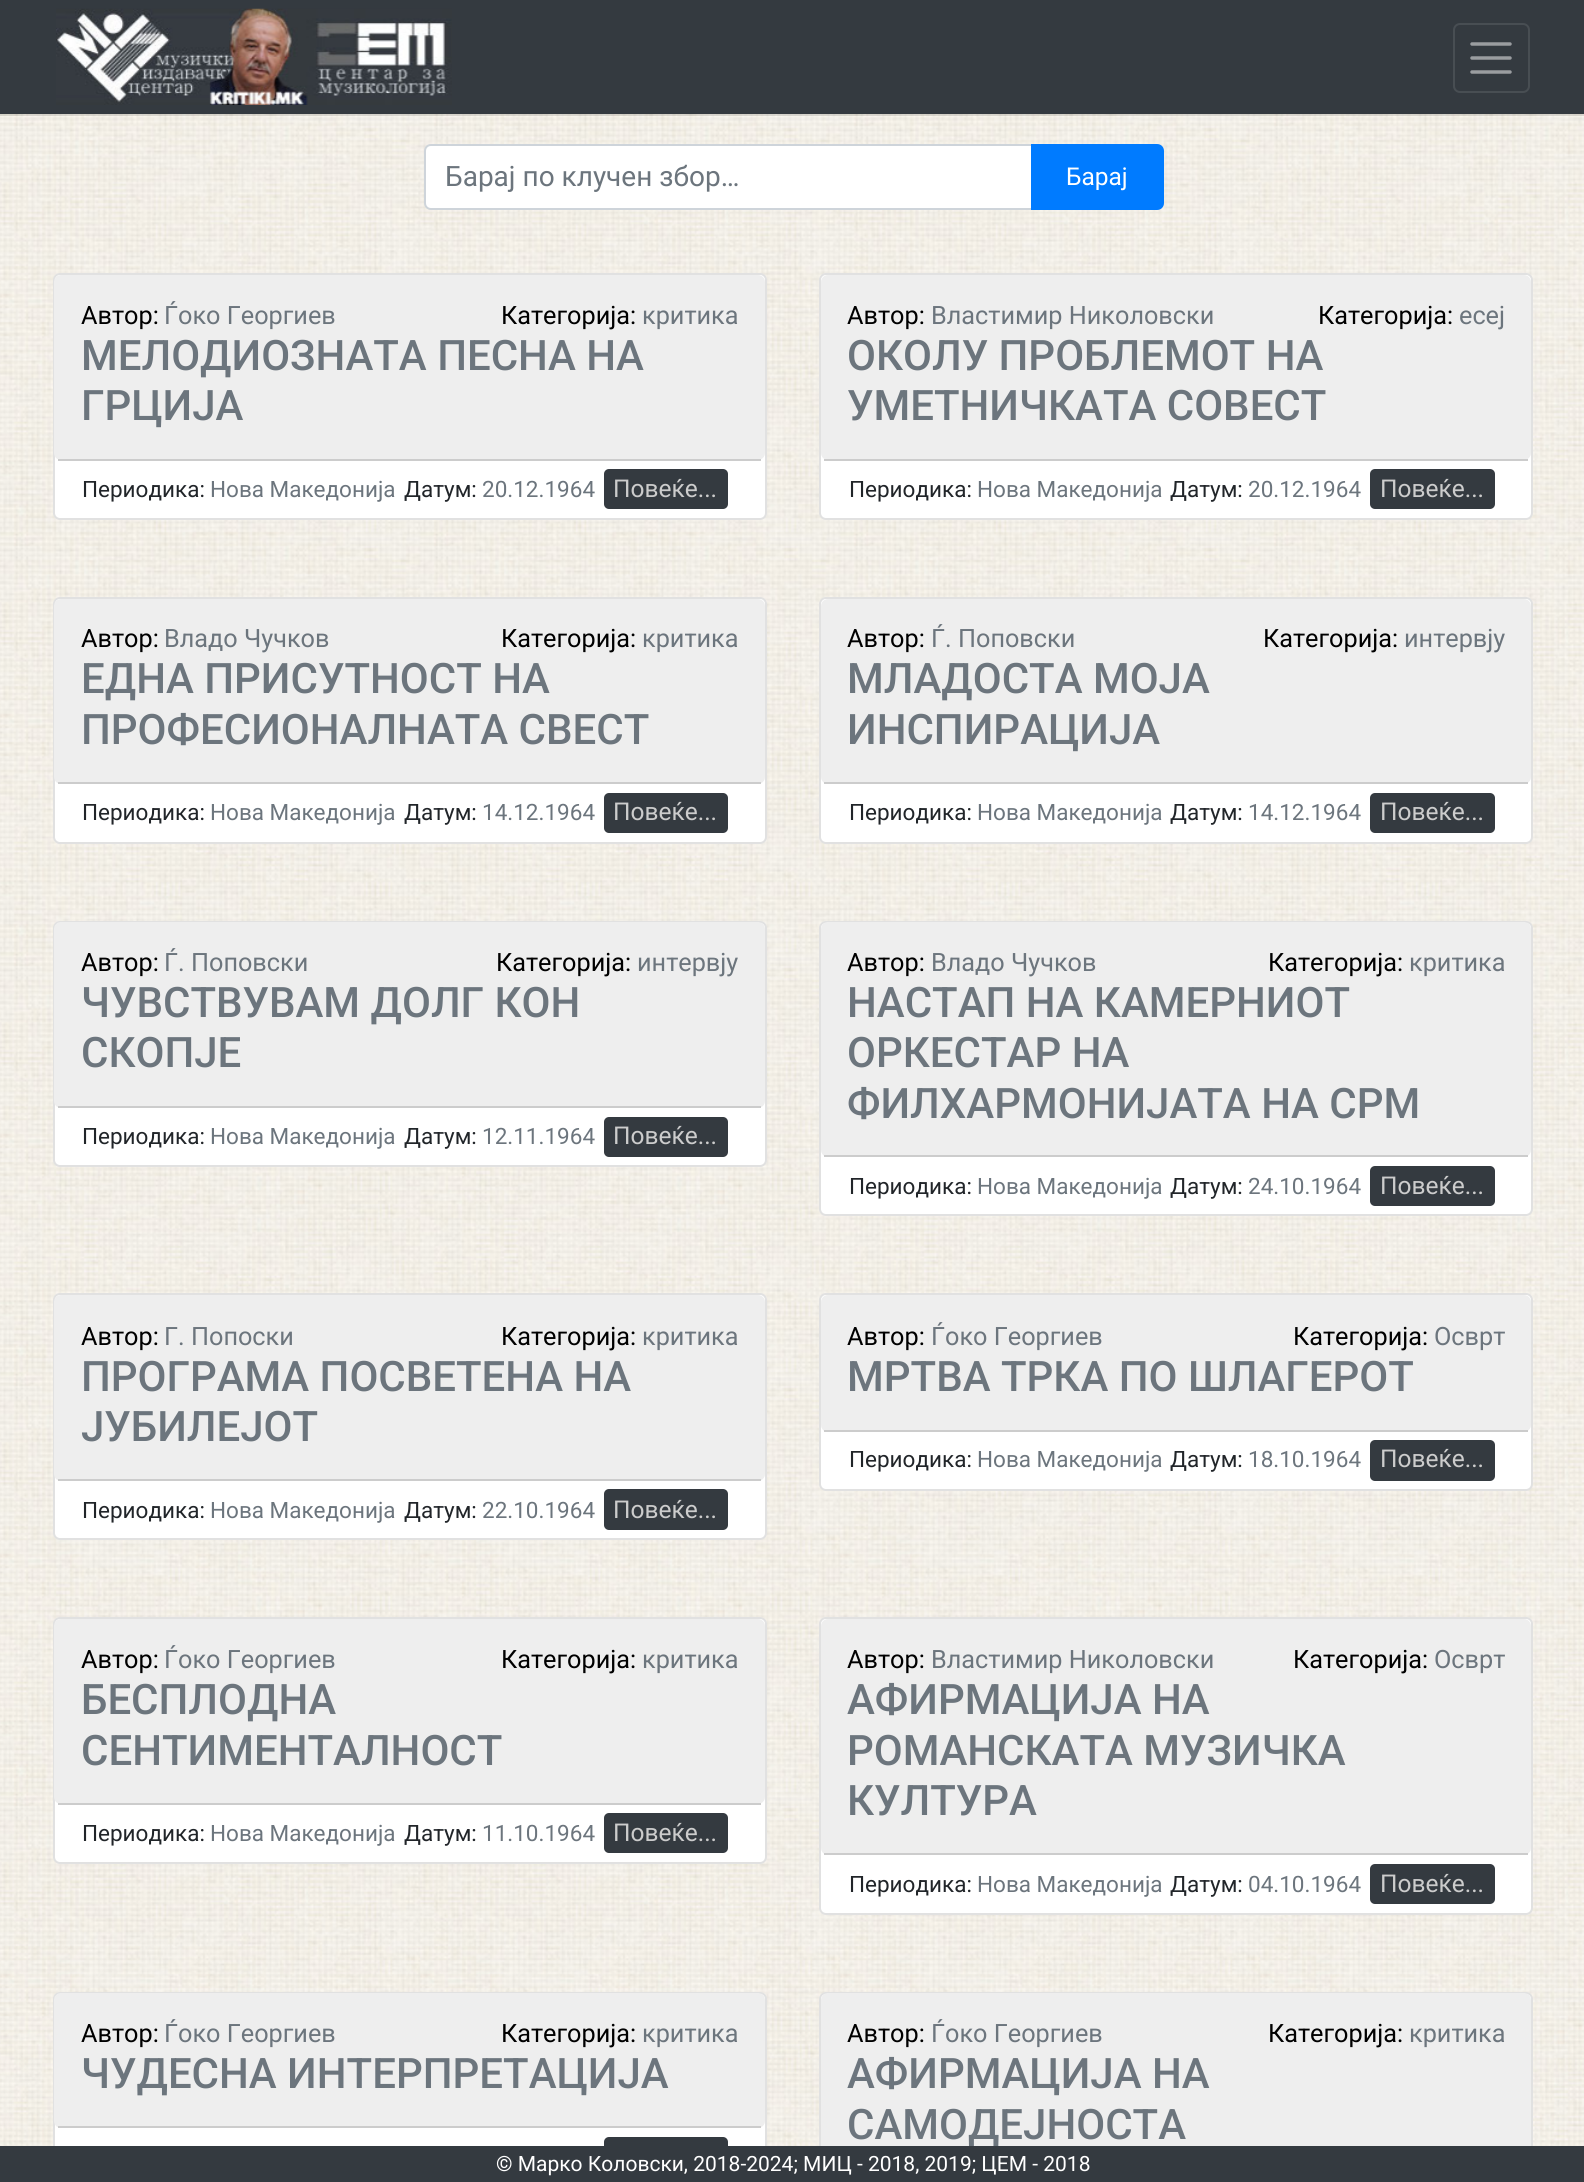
#include <cairo/cairo.h>
#include <math.h>
#include <stddef.h>

static cairo_t *cr;

static void use_color(int r, int g, int b) {
  cairo_set_source_rgb(cr, r / 255.0, g / 255.0, b / 255.0);
}

static void text(double x, double y, const char *s, const char *family, double size, int italic, int bold, int r, int g, int b) {
  cairo_select_font_face(cr, family, italic ? CAIRO_FONT_SLANT_ITALIC : CAIRO_FONT_SLANT_NORMAL,
    bold ? CAIRO_FONT_WEIGHT_BOLD : CAIRO_FONT_WEIGHT_NORMAL);
  cairo_set_font_size(cr, size);
  use_color(r, g, b);
  cairo_move_to(cr, x, y);
  cairo_show_text(cr, s);
}

static void box(double x, double y, double w, double h, int r, int g, int b) {
  use_color(r, g, b);
  cairo_rectangle(cr, x, y, w, h);
  cairo_fill(cr);
}

static void round_rect(double x, double y, double w, double h, double r) {
  cairo_new_sub_path(cr);
  cairo_arc(cr, x + w - r, y + h - r, r, 0, M_PI / 2);
  cairo_arc(cr, x + r, y + h - r, r, M_PI / 2, M_PI);
  cairo_arc(cr, x + r, y + r, r, M_PI, 1.5 * M_PI);
  cairo_arc(cr, x + w - r, y + r, r, 1.5 * M_PI, 2 * M_PI);
  cairo_close_path(cr);
}

static void picture(const char *path, double x, double y, double w, double h) {
  cairo_surface_t *image = cairo_image_surface_create_from_png(path);
  cairo_save(cr);
  cairo_set_source_surface(cr, image, x, y);
  cairo_rectangle(cr, x, y, w, h);
  cairo_fill(cr);
  cairo_restore(cr);
  cairo_surface_destroy(image);
}

static void draw(void) {
  use_color(255, 255, 255);
  cairo_paint(cr);
  picture("img_01.png", 0, 114, 1584, 2032);
  cairo_set_source_rgba(cr, 0, 0, 0, 0.12);
  cairo_rectangle(cr, 0, 114, 1584, 2);
  cairo_fill(cr);
  box(0, 0, 1584, 114, 52, 58, 64);
  picture("img_02.png", 56, 8, 396, 97);
  round_rect(1454, 24, 75, 68, 6);
  use_color(72, 78, 83);
  cairo_stroke(cr);
  cairo_new_path(cr);
  cairo_move_to(cr, 1472, 44);
  cairo_line_to(cr, 1510, 44);
  cairo_move_to(cr, 1472, 58);
  cairo_line_to(cr, 1510, 58);
  cairo_move_to(cr, 1472, 72);
  cairo_line_to(cr, 1510, 72);
  use_color(154, 157, 160);
  cairo_set_line_width(cr, 3.5);
  cairo_set_line_cap(cr, CAIRO_LINE_CAP_ROUND);
  cairo_stroke(cr);
  use_color(255, 255, 255);
  cairo_new_path(cr);
  cairo_move_to(cr, 431, 145);
  cairo_line_to(cr, 1032, 145);
  cairo_line_to(cr, 1032, 209);
  cairo_line_to(cr, 431, 209);
  cairo_curve_to(cr, 427.5, 209, 425, 206.5, 425, 203);
  cairo_line_to(cr, 425, 151);
  cairo_curve_to(cr, 425, 147.5, 427.5, 145, 431, 145);
  cairo_close_path(cr);
  cairo_fill_preserve(cr);
  use_color(206, 212, 218);
  cairo_set_line_width(cr, 2);
  cairo_set_line_cap(cr, CAIRO_LINE_CAP_BUTT);
  cairo_stroke(cr);
  use_color(0, 123, 255);
  cairo_new_path(cr);
  cairo_move_to(cr, 1031, 144);
  cairo_line_to(cr, 1157, 144);
  cairo_curve_to(cr, 1161, 144, 1164, 147, 1164, 151);
  cairo_line_to(cr, 1164, 203);
  cairo_curve_to(cr, 1164, 207, 1161, 210, 1157, 210);
  cairo_line_to(cr, 1031, 210);
  cairo_close_path(cr);
  cairo_fill(cr);
  use_color(255, 255, 255);
  round_rect(53, 273, 714, 247, 7);
  cairo_fill(cr);
  round_rect(54, 274, 712, 245, 6);
  cairo_set_source_rgba(cr, 0, 0, 0, 0.12);
  cairo_stroke(cr);
  use_color(238, 238, 238);
  round_rect(54, 275, 711, 185, 7);
  cairo_fill(cr);
  box(58, 459, 703, 2, 204, 204, 204);
  use_color(52, 58, 64);
  round_rect(604, 469, 124, 40, 5);
  cairo_fill(cr);
  use_color(255, 255, 255);
  round_rect(819, 273, 714, 247, 7);
  cairo_fill(cr);
  round_rect(820, 274, 712, 245, 6);
  cairo_set_source_rgba(cr, 0, 0, 0, 0.12);
  cairo_stroke(cr);
  use_color(238, 238, 238);
  round_rect(821, 275, 710, 185, 7);
  cairo_fill(cr);
  box(824, 459, 704, 2, 204, 204, 204);
  use_color(52, 58, 64);
  round_rect(1370, 469, 125, 40, 5);
  cairo_fill(cr);
  use_color(255, 255, 255);
  round_rect(53, 597, 714, 247, 7);
  cairo_fill(cr);
  round_rect(54, 598, 712, 245, 6);
  cairo_set_source_rgba(cr, 0, 0, 0, 0.12);
  cairo_stroke(cr);
  use_color(238, 238, 238);
  round_rect(54, 599, 711, 185, 7);
  cairo_fill(cr);
  box(58, 782, 703, 2, 204, 204, 204);
  use_color(52, 58, 64);
  round_rect(604, 793, 124, 40, 5);
  cairo_fill(cr);
  use_color(255, 255, 255);
  round_rect(819, 597, 714, 247, 7);
  cairo_fill(cr);
  round_rect(820, 598, 712, 245, 6);
  cairo_set_source_rgba(cr, 0, 0, 0, 0.12);
  cairo_stroke(cr);
  use_color(238, 238, 238);
  round_rect(821, 599, 710, 185, 7);
  cairo_fill(cr);
  box(824, 782, 704, 2, 204, 204, 204);
  use_color(52, 58, 64);
  round_rect(1370, 793, 125, 40, 5);
  cairo_fill(cr);
  use_color(255, 255, 255);
  round_rect(53, 921, 714, 246, 7);
  cairo_fill(cr);
  round_rect(54, 922, 712, 244, 6);
  cairo_set_source_rgba(cr, 0, 0, 0, 0.12);
  cairo_stroke(cr);
  use_color(238, 238, 238);
  round_rect(54, 922, 711, 186, 7);
  cairo_fill(cr);
  box(58, 1106, 703, 2, 204, 204, 204);
  use_color(52, 58, 64);
  round_rect(604, 1117, 124, 40, 5);
  cairo_fill(cr);
  use_color(255, 255, 255);
  round_rect(819, 921, 714, 295, 7);
  cairo_fill(cr);
  round_rect(820, 922, 712, 293, 6);
  cairo_set_source_rgba(cr, 0, 0, 0, 0.12);
  cairo_stroke(cr);
  use_color(238, 238, 238);
  round_rect(821, 922, 710, 235, 7);
  cairo_fill(cr);
  box(824, 1155, 704, 2, 204, 204, 204);
  use_color(52, 58, 64);
  round_rect(1370, 1166, 125, 40, 5);
  cairo_fill(cr);
  use_color(255, 255, 255);
  round_rect(53, 1293, 714, 247, 7);
  cairo_fill(cr);
  round_rect(54, 1294, 712, 245, 6);
  cairo_set_source_rgba(cr, 0, 0, 0, 0.12);
  cairo_stroke(cr);
  use_color(238, 238, 238);
  round_rect(54, 1295, 711, 186, 7);
  cairo_fill(cr);
  box(58, 1479, 703, 2, 204, 204, 204);
  use_color(52, 58, 64);
  round_rect(604, 1489, 124, 41, 5);
  cairo_fill(cr);
  use_color(255, 255, 255);
  round_rect(819, 1293, 714, 198, 7);
  cairo_fill(cr);
  round_rect(820, 1294, 712, 196, 6);
  cairo_set_source_rgba(cr, 0, 0, 0, 0.12);
  cairo_stroke(cr);
  use_color(238, 238, 238);
  round_rect(821, 1295, 710, 137, 7);
  cairo_fill(cr);
  box(824, 1430, 704, 2, 204, 204, 204);
  use_color(52, 58, 64);
  round_rect(1370, 1440, 125, 41, 5);
  cairo_fill(cr);
  use_color(255, 255, 255);
  round_rect(53, 1617, 714, 247, 7);
  cairo_fill(cr);
  round_rect(54, 1618, 712, 245, 6);
  cairo_set_source_rgba(cr, 0, 0, 0, 0.12);
  cairo_stroke(cr);
  use_color(238, 238, 238);
  round_rect(54, 1619, 711, 185, 7);
  cairo_fill(cr);
  box(58, 1803, 703, 2, 204, 204, 204);
  use_color(52, 58, 64);
  round_rect(604, 1813, 124, 40, 5);
  cairo_fill(cr);
  use_color(255, 255, 255);
  round_rect(819, 1617, 714, 298, 7);
  cairo_fill(cr);
  round_rect(820, 1618, 712, 296, 6);
  cairo_set_source_rgba(cr, 0, 0, 0, 0.12);
  cairo_stroke(cr);
  use_color(238, 238, 238);
  round_rect(821, 1619, 710, 236, 7);
  cairo_fill(cr);
  box(824, 1853, 704, 2, 204, 204, 204);
  use_color(52, 58, 64);
  round_rect(1370, 1864, 125, 40, 5);
  cairo_fill(cr);
  use_color(255, 255, 255);
  round_rect(53, 1992, 714, 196, 7);
  cairo_fill(cr);
  round_rect(54, 1993, 712, 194, 6);
  cairo_set_source_rgba(cr, 0, 0, 0, 0.12);
  cairo_stroke(cr);
  use_color(238, 238, 238);
  round_rect(54, 1993, 711, 135, 7);
  cairo_fill(cr);
  box(58, 2126, 703, 2, 204, 204, 204);
  use_color(52, 58, 64);
  round_rect(604, 2137, 124, 40, 5);
  cairo_fill(cr);
  use_color(255, 255, 255);
  round_rect(819, 1992, 714, 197, 7);
  cairo_fill(cr);
  round_rect(820, 1993, 712, 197, 6);
  cairo_set_source_rgba(cr, 0, 0, 0, 0.12);
  cairo_stroke(cr);
  use_color(238, 238, 238);
  round_rect(821, 1993, 710, 186, 7);
  cairo_fill(cr);
  text(445, 186, "Барај по клучен збор…", "Roboto", 28, 0, 0, 108, 117, 125);
  text(1066, 185, "Барај", "Roboto", 24.5, 0, 0, 255, 255, 255);
  text(81, 324, "Автор:", "Roboto", 25.25, 0, 0, 0, 0, 0);
  text(164, 324, "Ѓоко Георгиев", "Roboto", 25.25, 0, 0, 108, 117, 125);
  text(501, 324, "Категорија:", "Roboto", 25.25, 0, 0, 0, 0, 0);
  text(642, 324, "критика", "Roboto", 25.25, 0, 0, 108, 117, 125);
  text(81, 370, "МЕЛОДИОЗНАТА ПЕСНА НА", "Roboto Medium", 42, 0, 0, 108, 117, 125);
  text(81, 420, "ГРЦИЈА", "Roboto Medium", 42, 0, 0, 108, 117, 125);
  text(82, 497, "Периодика:", "Roboto", 22.5, 0, 0, 33, 37, 41);
  text(210, 497, "Нова Македонија", "Roboto", 22.5, 0, 0, 108, 117, 125);
  text(404, 497, "Датум:", "Roboto", 22.5, 0, 0, 33, 37, 41);
  text(482, 497, "20.12.1964", "Roboto", 22.5, 0, 0, 108, 117, 125);
  text(613, 497, "Повеќе...", "Roboto", 24.5, 0, 0, 204, 204, 204);
  text(847, 324, "Автор:", "Roboto", 25.25, 0, 0, 0, 0, 0);
  text(931, 324, "Властимир Николовски", "Roboto", 25.25, 0, 0, 108, 117, 125);
  text(1318, 324, "Категорија:", "Roboto", 25.25, 0, 0, 0, 0, 0);
  text(1459, 324, "есеј", "Roboto", 25.25, 0, 0, 108, 117, 125);
  text(847, 370, "ОКОЛУ ПРОБЛЕМОТ НА", "Roboto Medium", 42, 0, 0, 108, 117, 125);
  text(847, 420, "УМЕТНИЧКАТА СОВЕСТ", "Roboto Medium", 42, 0, 0, 108, 117, 125);
  text(849, 497, "Периодика:", "Roboto", 22.5, 0, 0, 33, 37, 41);
  text(977, 497, "Нова Македонија", "Roboto", 22.5, 0, 0, 108, 117, 125);
  text(1170, 497, "Датум:", "Roboto", 22.5, 0, 0, 33, 37, 41);
  text(1248, 497, "20.12.1964", "Roboto", 22.5, 0, 0, 108, 117, 125);
  text(1380, 497, "Повеќе...", "Roboto", 24.5, 0, 0, 204, 204, 204);
  text(81, 647, "Автор:", "Roboto", 25.25, 0, 0, 0, 0, 0);
  text(164, 647, "Владо Чучков", "Roboto", 25.25, 0, 0, 108, 117, 125);
  text(501, 647, "Категорија:", "Roboto", 25.25, 0, 0, 0, 0, 0);
  text(642, 647, "критика", "Roboto", 25.25, 0, 0, 108, 117, 125);
  text(81, 693, "ЕДНА ПРИСУТНОСТ НА", "Roboto Medium", 42, 0, 0, 108, 117, 125);
  text(81, 744, "ПРОФЕСИОНАЛНАТА СВЕСТ", "Roboto Medium", 42, 0, 0, 108, 117, 125);
  text(82, 820, "Периодика:", "Roboto", 22.5, 0, 0, 33, 37, 41);
  text(210, 820, "Нова Македонија", "Roboto", 22.5, 0, 0, 108, 117, 125);
  text(404, 820, "Датум:", "Roboto", 22.5, 0, 0, 33, 37, 41);
  text(482, 820, "14.12.1964", "Roboto", 22.5, 0, 0, 108, 117, 125);
  text(613, 820, "Повеќе...", "Roboto", 24.5, 0, 0, 204, 204, 204);
  text(847, 647, "Автор:", "Roboto", 25.25, 0, 0, 0, 0, 0);
  text(931, 647, "Ѓ. Поповски", "Roboto", 25.25, 0, 0, 108, 117, 125);
  text(1263, 647, "Категорија:", "Roboto", 25.25, 0, 0, 0, 0, 0);
  text(1404, 647, "интервју", "Roboto", 25.25, 0, 0, 108, 117, 125);
  text(847, 693, "МЛАДОСТА МОЈА", "Roboto Medium", 42, 0, 0, 108, 117, 125);
  text(847, 744, "ИНСПИРАЦИЈА", "Roboto Medium", 42, 0, 0, 108, 117, 125);
  text(849, 820, "Периодика:", "Roboto", 22.5, 0, 0, 33, 37, 41);
  text(977, 820, "Нова Македонија", "Roboto", 22.5, 0, 0, 108, 117, 125);
  text(1170, 820, "Датум:", "Roboto", 22.5, 0, 0, 33, 37, 41);
  text(1248, 820, "14.12.1964", "Roboto", 22.5, 0, 0, 108, 117, 125);
  text(1380, 820, "Повеќе...", "Roboto", 24.5, 0, 0, 204, 204, 204);
  text(81, 971, "Автор:", "Roboto", 25.25, 0, 0, 0, 0, 0);
  text(164, 971, "Ѓ. Поповски", "Roboto", 25.25, 0, 0, 108, 117, 125);
  text(496, 971, "Категорија:", "Roboto", 25.25, 0, 0, 0, 0, 0);
  text(637, 971, "интервју", "Roboto", 25.25, 0, 0, 108, 117, 125);
  text(81, 1017, "ЧУВСТВУВАМ ДОЛГ КОН", "Roboto Medium", 42, 0, 0, 108, 117, 125);
  text(81, 1067, "СКОПЈЕ", "Roboto Medium", 42, 0, 0, 108, 117, 125);
  text(82, 1144, "Периодика:", "Roboto", 22.5, 0, 0, 33, 37, 41);
  text(210, 1144, "Нова Македонија", "Roboto", 22.5, 0, 0, 108, 117, 125);
  text(404, 1144, "Датум:", "Roboto", 22.5, 0, 0, 33, 37, 41);
  text(482, 1144, "12.11.1964", "Roboto", 22.5, 0, 0, 108, 117, 125);
  text(613, 1144, "Повеќе...", "Roboto", 24.5, 0, 0, 204, 204, 204);
  text(847, 971, "Автор:", "Roboto", 25.25, 0, 0, 0, 0, 0);
  text(931, 971, "Владо Чучков", "Roboto", 25.25, 0, 0, 108, 117, 125);
  text(1268, 971, "Категорија:", "Roboto", 25.25, 0, 0, 0, 0, 0);
  text(1409, 971, "критика", "Roboto", 25.25, 0, 0, 108, 117, 125);
  text(847, 1017, "НАСТАП НА КАМЕРНИОТ", "Roboto Medium", 42, 0, 0, 108, 117, 125);
  text(847, 1067, "ОРКЕСТАР НА", "Roboto Medium", 42, 0, 0, 108, 117, 125);
  text(847, 1118, "ФИЛХАРМОНИЈАТА НА СРМ", "Roboto Medium", 42, 0, 0, 108, 117, 125);
  text(849, 1194, "Периодика:", "Roboto", 22.5, 0, 0, 33, 37, 41);
  text(977, 1194, "Нова Македонија", "Roboto", 22.5, 0, 0, 108, 117, 125);
  text(1170, 1194, "Датум:", "Roboto", 22.5, 0, 0, 33, 37, 41);
  text(1248, 1194, "24.10.1964", "Roboto", 22.5, 0, 0, 108, 117, 125);
  text(1380, 1194, "Повеќе...", "Roboto", 24.5, 0, 0, 204, 204, 204);
  text(81, 1345, "Автор:", "Roboto", 25.25, 0, 0, 0, 0, 0);
  text(164, 1345, "Г. Попоски", "Roboto", 25.25, 0, 0, 108, 117, 125);
  text(501, 1345, "Категорија:", "Roboto", 25.25, 0, 0, 0, 0, 0);
  text(642, 1345, "критика", "Roboto", 25.25, 0, 0, 108, 117, 125);
  text(81, 1391, "ПРОГРАМА ПОСВЕТЕНА НА", "Roboto Medium", 42, 0, 0, 108, 117, 125);
  text(81, 1441, "ЈУБИЛЕЈОТ", "Roboto Medium", 42, 0, 0, 108, 117, 125);
  text(82, 1518, "Периодика:", "Roboto", 22.5, 0, 0, 33, 37, 41);
  text(210, 1518, "Нова Македонија", "Roboto", 22.5, 0, 0, 108, 117, 125);
  text(404, 1518, "Датум:", "Roboto", 22.5, 0, 0, 33, 37, 41);
  text(482, 1518, "22.10.1964", "Roboto", 22.5, 0, 0, 108, 117, 125);
  text(613, 1518, "Повеќе...", "Roboto", 24.5, 0, 0, 204, 204, 204);
  text(847, 1345, "Автор:", "Roboto", 25.25, 0, 0, 0, 0, 0);
  text(931, 1345, "Ѓоко Георгиев", "Roboto", 25.25, 0, 0, 108, 117, 125);
  text(1293, 1345, "Категорија:", "Roboto", 25.25, 0, 0, 0, 0, 0);
  text(1434, 1345, "Осврт", "Roboto", 25.25, 0, 0, 108, 117, 125);
  text(847, 1391, "МРТВА ТРКА ПО ШЛАГЕРОТ", "Roboto Medium", 42, 0, 0, 108, 117, 125);
  text(849, 1467, "Периодика:", "Roboto", 22.5, 0, 0, 33, 37, 41);
  text(977, 1467, "Нова Македонија", "Roboto", 22.5, 0, 0, 108, 117, 125);
  text(1170, 1467, "Датум:", "Roboto", 22.5, 0, 0, 33, 37, 41);
  text(1248, 1467, "18.10.1964", "Roboto", 22.5, 0, 0, 108, 117, 125);
  text(1380, 1467, "Повеќе...", "Roboto", 24.5, 0, 0, 204, 204, 204);
  text(81, 1668, "Автор:", "Roboto", 25.25, 0, 0, 0, 0, 0);
  text(164, 1668, "Ѓоко Георгиев", "Roboto", 25.25, 0, 0, 108, 117, 125);
  text(501, 1668, "Категорија:", "Roboto", 25.25, 0, 0, 0, 0, 0);
  text(642, 1668, "критика", "Roboto", 25.25, 0, 0, 108, 117, 125);
  text(81, 1714, "БЕСПЛОДНА", "Roboto Medium", 42, 0, 0, 108, 117, 125);
  text(81, 1765, "СЕНТИМЕНТАЛНОСТ", "Roboto Medium", 42, 0, 0, 108, 117, 125);
  text(82, 1841, "Периодика:", "Roboto", 22.5, 0, 0, 33, 37, 41);
  text(210, 1841, "Нова Македонија", "Roboto", 22.5, 0, 0, 108, 117, 125);
  text(404, 1841, "Датум:", "Roboto", 22.5, 0, 0, 33, 37, 41);
  text(482, 1841, "11.10.1964", "Roboto", 22.5, 0, 0, 108, 117, 125);
  text(613, 1841, "Повеќе...", "Roboto", 24.5, 0, 0, 204, 204, 204);
  text(847, 1668, "Автор:", "Roboto", 25.25, 0, 0, 0, 0, 0);
  text(931, 1668, "Властимир Николовски", "Roboto", 25.25, 0, 0, 108, 117, 125);
  text(1293, 1668, "Категорија:", "Roboto", 25.25, 0, 0, 0, 0, 0);
  text(1434, 1668, "Осврт", "Roboto", 25.25, 0, 0, 108, 117, 125);
  text(847, 1714, "АФИРМАЦИЈА НА", "Roboto Medium", 42, 0, 0, 108, 117, 125);
  text(847, 1765, "РОМАНСКАТА МУЗИЧКА", "Roboto Medium", 42, 0, 0, 108, 117, 125);
  text(847, 1815, "КУЛТУРА", "Roboto Medium", 42, 0, 0, 108, 117, 125);
  text(849, 1892, "Периодика:", "Roboto", 22.5, 0, 0, 33, 37, 41);
  text(977, 1892, "Нова Македонија", "Roboto", 22.5, 0, 0, 108, 117, 125);
  text(1170, 1892, "Датум:", "Roboto", 22.5, 0, 0, 33, 37, 41);
  text(1248, 1892, "04.10.1964", "Roboto", 22.5, 0, 0, 108, 117, 125);
  text(1380, 1892, "Повеќе...", "Roboto", 24.5, 0, 0, 204, 204, 204);
  text(81, 2042, "Автор:", "Roboto", 25.25, 0, 0, 0, 0, 0);
  text(164, 2042, "Ѓоко Георгиев", "Roboto", 25.25, 0, 0, 108, 117, 125);
  text(501, 2042, "Категорија:", "Roboto", 25.25, 0, 0, 0, 0, 0);
  text(642, 2042, "критика", "Roboto", 25.25, 0, 0, 108, 117, 125);
  text(81, 2088, "ЧУДЕСНА ИНТЕРПРЕТАЦИЈА", "Roboto Medium", 42, 0, 0, 108, 117, 125);
  text(847, 2042, "Автор:", "Roboto", 25.25, 0, 0, 0, 0, 0);
  text(931, 2042, "Ѓоко Георгиев", "Roboto", 25.25, 0, 0, 108, 117, 125);
  text(1268, 2042, "Категорија:", "Roboto", 25.25, 0, 0, 0, 0, 0);
  text(1409, 2042, "критика", "Roboto", 25.25, 0, 0, 108, 117, 125);
  text(847, 2088, "АФИРМАЦИЈА НА", "Roboto Medium", 42, 0, 0, 108, 117, 125);
  text(847, 2139, "САМОДЕЈНОСТА", "Roboto Medium", 42, 0, 0, 108, 117, 125);
  box(0, 2146, 1584, 36, 52, 58, 64);
  text(496, 2171, "© Марко Коловски, 2018-2024; МИЦ - 2018, 2019; ЦЕМ - 2018", "Roboto", 21, 0, 0, 255, 255, 255);
}

int main(void) {
  cairo_surface_t *surface = cairo_image_surface_create(CAIRO_FORMAT_RGB24, 1584, 2182);
  cr = cairo_create(surface);
  cairo_font_options_t *options = cairo_font_options_create();
  cairo_font_options_set_hint_metrics(options, CAIRO_HINT_METRICS_OFF);
  cairo_font_options_set_hint_style(options, CAIRO_HINT_STYLE_NONE);
  cairo_set_font_options(cr, options);
  cairo_set_miter_limit(cr, 4);
  draw();
  cairo_surface_write_to_png(surface, "out.png");
  cairo_font_options_destroy(options);
  cairo_destroy(cr);
  cairo_surface_destroy(surface);
  return 0;
}
